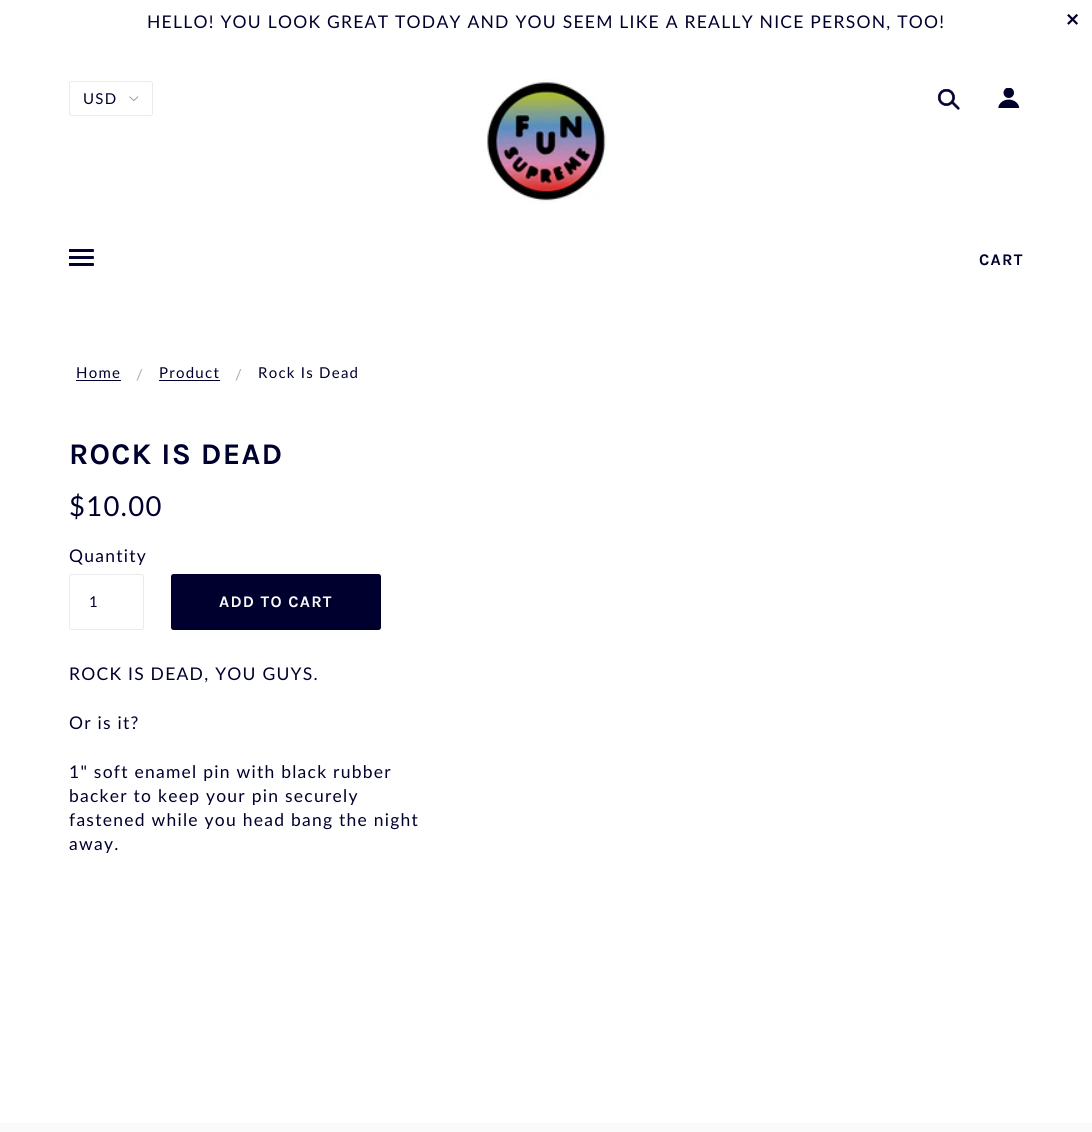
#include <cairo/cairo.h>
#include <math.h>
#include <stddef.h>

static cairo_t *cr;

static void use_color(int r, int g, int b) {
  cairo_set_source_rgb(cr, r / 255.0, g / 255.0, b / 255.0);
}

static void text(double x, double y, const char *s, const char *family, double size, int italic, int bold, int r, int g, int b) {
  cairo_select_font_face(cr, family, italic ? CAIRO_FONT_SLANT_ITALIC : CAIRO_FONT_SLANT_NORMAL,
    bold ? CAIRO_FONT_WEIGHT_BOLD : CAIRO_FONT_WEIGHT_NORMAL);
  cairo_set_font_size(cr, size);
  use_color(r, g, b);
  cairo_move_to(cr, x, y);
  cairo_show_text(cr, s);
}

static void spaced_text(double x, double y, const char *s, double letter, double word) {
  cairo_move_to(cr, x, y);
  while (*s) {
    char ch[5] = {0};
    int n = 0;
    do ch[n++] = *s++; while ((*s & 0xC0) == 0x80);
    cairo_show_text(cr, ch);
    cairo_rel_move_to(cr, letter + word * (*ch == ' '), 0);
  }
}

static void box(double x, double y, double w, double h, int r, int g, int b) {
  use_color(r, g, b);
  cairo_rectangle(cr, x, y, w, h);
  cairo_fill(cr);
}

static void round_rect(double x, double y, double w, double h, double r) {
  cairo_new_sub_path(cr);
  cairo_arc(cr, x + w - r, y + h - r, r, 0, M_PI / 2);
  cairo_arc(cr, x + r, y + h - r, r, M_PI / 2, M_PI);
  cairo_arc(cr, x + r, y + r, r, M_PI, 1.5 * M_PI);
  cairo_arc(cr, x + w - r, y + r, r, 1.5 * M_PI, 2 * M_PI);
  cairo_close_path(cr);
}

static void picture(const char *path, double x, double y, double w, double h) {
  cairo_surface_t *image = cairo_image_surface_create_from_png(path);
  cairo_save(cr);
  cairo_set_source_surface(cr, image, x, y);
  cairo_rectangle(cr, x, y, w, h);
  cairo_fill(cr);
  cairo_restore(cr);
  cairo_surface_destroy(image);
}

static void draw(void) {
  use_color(255, 255, 255);
  cairo_paint(cr);
  picture("img_01.png", 129, 96, 10, 5);
  round_rect(69.5, 81.5, 83, 34, 2);
  use_color(235, 235, 235);
  cairo_set_line_width(cr, 1);
  cairo_stroke(cr);
  picture("img_02.png", 487, 79, 120, 125);
  picture("img_03.png", 937, 89, 23, 21);
  picture("img_04.png", 998, 88, 22, 20);
  picture("img_05.png", 69, 249, 25, 17);
  box(76, 380, 45, 1, 0, 0, 46);
  box(159, 380, 61, 1, 0, 0, 46);
  round_rect(69.5, 574.5, 74, 55, 2);
  use_color(235, 235, 235);
  cairo_stroke(cr);
  use_color(0, 0, 46);
  round_rect(171, 574, 210, 56, 2.5);
  cairo_fill(cr);
  box(0, 1123, 1092, 9, 250, 250, 250);
  cairo_select_font_face(cr, "Lato", CAIRO_FONT_SLANT_NORMAL, CAIRO_FONT_WEIGHT_NORMAL);
  cairo_set_font_size(cr, 17.5);
  use_color(0, 0, 46);
  spaced_text(147, 28, "HELLO! YOU LOOK GREAT TODAY AND YOU SEEM LIKE A REALLY NICE PERSON, TOO!", 1.25, 0);
  text(1065, 26, "✕", "DejaVu Sans", 17.5, 0, 1, 0, 0, 46);
  cairo_select_font_face(cr, "Lato", CAIRO_FONT_SLANT_NORMAL, CAIRO_FONT_WEIGHT_NORMAL);
  cairo_set_font_size(cr, 15);
  spaced_text(83, 104, "USD", 1.25, 0);
  cairo_select_font_face(cr, "Karla", CAIRO_FONT_SLANT_NORMAL, CAIRO_FONT_WEIGHT_BOLD);
  cairo_set_font_size(cr, 16.25);
  spaced_text(979, 265, "CART", 1.25, 0);
  cairo_select_font_face(cr, "Lato", CAIRO_FONT_SLANT_NORMAL, CAIRO_FONT_WEIGHT_NORMAL);
  cairo_set_font_size(cr, 15);
  spaced_text(76, 378, "Home", 1.25, 0);
  use_color(170, 170, 170);
  spaced_text(136, 380, "/", 1.25, 0);
  use_color(0, 0, 46);
  spaced_text(159, 378, "Product", 1.25, 0);
  use_color(170, 170, 170);
  spaced_text(235, 380, "/", 1.25, 0);
  use_color(0, 0, 46);
  spaced_text(258, 378, "Rock Is Dead", 1.25, 0);
  cairo_select_font_face(cr, "Karla", CAIRO_FONT_SLANT_NORMAL, CAIRO_FONT_WEIGHT_BOLD);
  cairo_set_font_size(cr, 30);
  spaced_text(69, 464, "ROCK IS DEAD", 1.25, 0);
  cairo_select_font_face(cr, "Lato", CAIRO_FONT_SLANT_NORMAL, CAIRO_FONT_WEIGHT_NORMAL);
  cairo_set_font_size(cr, 27.5);
  spaced_text(69, 516, "$10.00", 1.25, 0);
  cairo_set_font_size(cr, 17.5);
  spaced_text(69, 562, "Quantity", 1.25, 0);
  cairo_set_font_size(cr, 15);
  spaced_text(89, 607, "1", 1, 0);
  cairo_select_font_face(cr, "Karla", CAIRO_FONT_SLANT_NORMAL, CAIRO_FONT_WEIGHT_BOLD);
  cairo_set_font_size(cr, 16.25);
  use_color(250, 250, 250);
  spaced_text(219, 607, "ADD TO CART", 1.25, 0);
  cairo_select_font_face(cr, "Lato", CAIRO_FONT_SLANT_NORMAL, CAIRO_FONT_WEIGHT_NORMAL);
  cairo_set_font_size(cr, 17.5);
  use_color(0, 0, 46);
  spaced_text(69, 680, "ROCK IS DEAD, YOU GUYS.", 1.25, 0);
  spaced_text(69, 729, "Or is it?", 1.25, 0);
  spaced_text(69, 778, "1\" soft enamel pin with black rubber", 1.25, 0);
  spaced_text(69, 802, "backer to keep your pin securely", 1.25, 0);
  spaced_text(69, 826, "fastened while you head bang the night", 1.25, 0);
  spaced_text(69, 850, "away.", 1.25, 0);
}

int main(void) {
  cairo_surface_t *surface = cairo_image_surface_create(CAIRO_FORMAT_RGB24, 1092, 1132);
  cr = cairo_create(surface);
  cairo_font_options_t *options = cairo_font_options_create();
  cairo_font_options_set_hint_metrics(options, CAIRO_HINT_METRICS_OFF);
  cairo_font_options_set_hint_style(options, CAIRO_HINT_STYLE_NONE);
  cairo_set_font_options(cr, options);
  cairo_set_miter_limit(cr, 4);
  draw();
  cairo_surface_write_to_png(surface, "out.png");
  cairo_font_options_destroy(options);
  cairo_destroy(cr);
  cairo_surface_destroy(surface);
  return 0;
}
